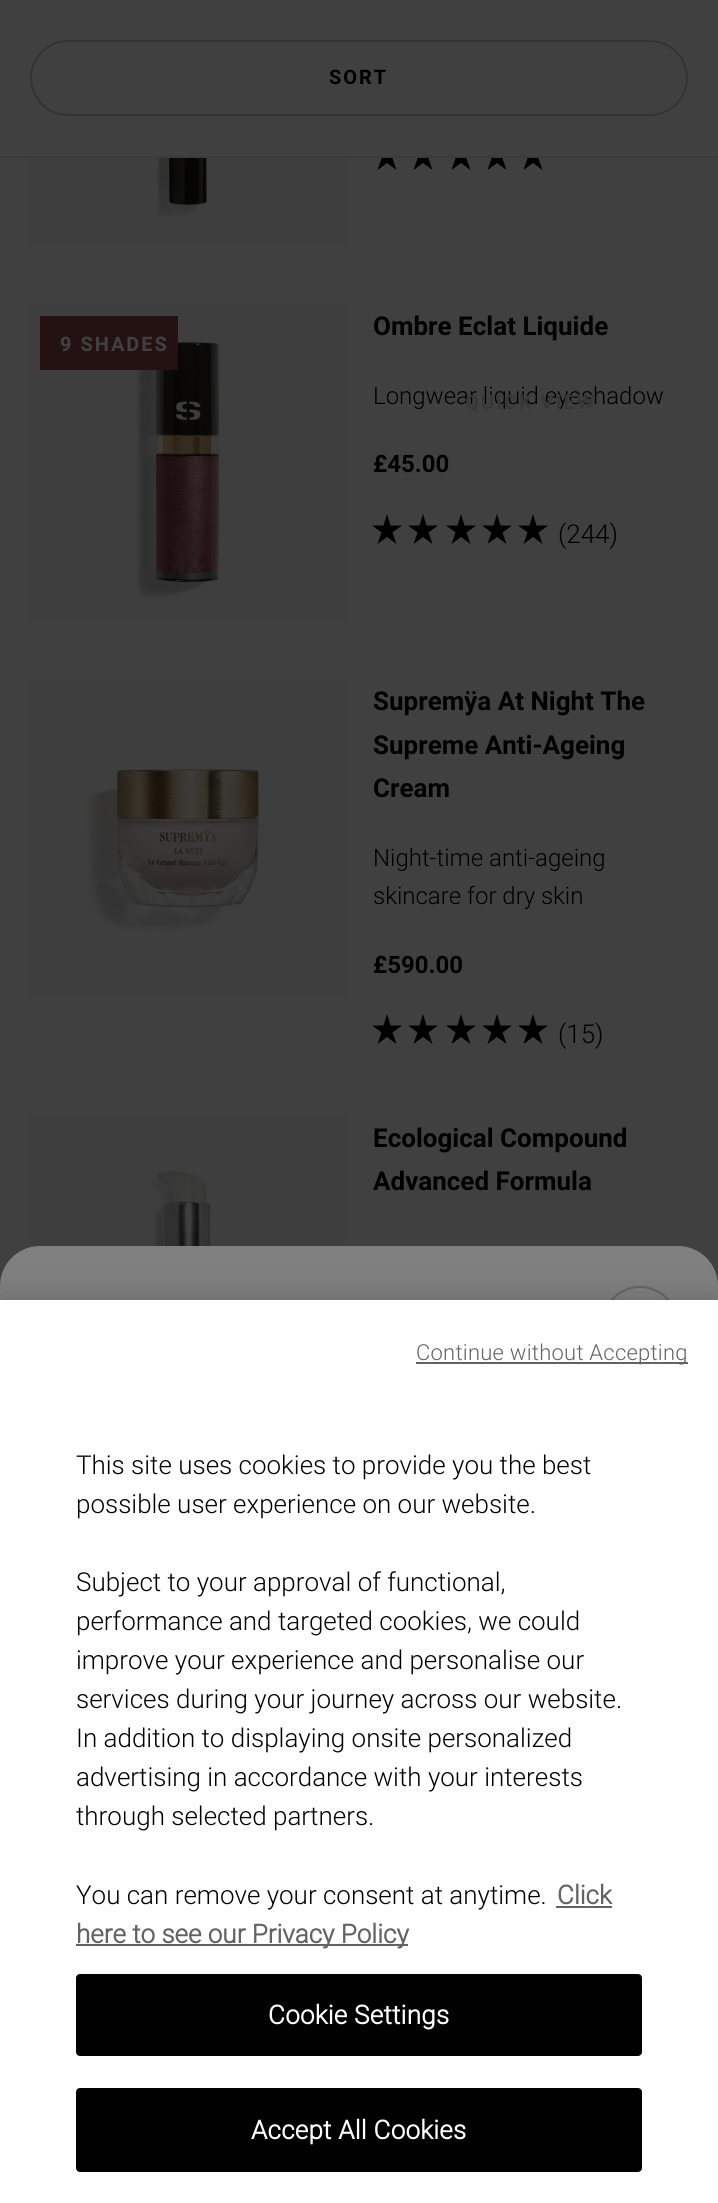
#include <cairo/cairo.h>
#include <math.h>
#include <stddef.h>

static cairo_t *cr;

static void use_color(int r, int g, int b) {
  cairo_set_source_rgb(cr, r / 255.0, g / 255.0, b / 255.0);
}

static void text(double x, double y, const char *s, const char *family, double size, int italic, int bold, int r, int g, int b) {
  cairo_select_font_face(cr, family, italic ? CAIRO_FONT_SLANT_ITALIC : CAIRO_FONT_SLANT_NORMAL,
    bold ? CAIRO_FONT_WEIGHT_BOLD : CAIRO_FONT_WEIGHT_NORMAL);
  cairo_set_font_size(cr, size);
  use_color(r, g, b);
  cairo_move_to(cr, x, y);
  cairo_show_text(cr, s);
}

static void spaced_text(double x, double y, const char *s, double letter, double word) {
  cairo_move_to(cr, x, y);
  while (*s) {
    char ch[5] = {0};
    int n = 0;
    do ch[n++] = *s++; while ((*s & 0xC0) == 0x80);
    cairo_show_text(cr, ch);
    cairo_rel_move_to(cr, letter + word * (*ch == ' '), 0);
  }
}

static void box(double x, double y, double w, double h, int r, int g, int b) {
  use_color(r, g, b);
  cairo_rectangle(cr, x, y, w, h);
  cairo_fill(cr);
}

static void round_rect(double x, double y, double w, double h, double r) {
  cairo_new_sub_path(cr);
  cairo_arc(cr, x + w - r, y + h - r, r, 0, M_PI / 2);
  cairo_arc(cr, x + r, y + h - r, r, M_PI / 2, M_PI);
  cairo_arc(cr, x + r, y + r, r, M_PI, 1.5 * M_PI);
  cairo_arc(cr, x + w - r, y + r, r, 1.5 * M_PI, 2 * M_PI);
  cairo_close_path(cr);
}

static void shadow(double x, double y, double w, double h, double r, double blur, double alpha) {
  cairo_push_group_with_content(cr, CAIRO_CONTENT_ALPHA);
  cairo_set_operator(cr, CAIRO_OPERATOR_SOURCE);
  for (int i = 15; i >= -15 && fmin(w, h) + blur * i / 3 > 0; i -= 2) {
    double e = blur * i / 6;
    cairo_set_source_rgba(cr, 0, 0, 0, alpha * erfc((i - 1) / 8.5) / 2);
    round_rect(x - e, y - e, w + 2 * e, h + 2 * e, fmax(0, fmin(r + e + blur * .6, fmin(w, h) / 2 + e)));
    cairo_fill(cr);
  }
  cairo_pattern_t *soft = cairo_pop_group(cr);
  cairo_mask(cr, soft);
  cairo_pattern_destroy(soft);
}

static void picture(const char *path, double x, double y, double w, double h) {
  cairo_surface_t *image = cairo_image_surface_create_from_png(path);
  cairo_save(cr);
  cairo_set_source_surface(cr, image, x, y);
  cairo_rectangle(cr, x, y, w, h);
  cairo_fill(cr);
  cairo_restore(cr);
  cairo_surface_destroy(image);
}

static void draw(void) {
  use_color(64, 64, 64);
  cairo_paint(cr);
  use_color(0, 0, 0);
  cairo_set_fill_rule(cr, CAIRO_FILL_RULE_EVEN_ODD);
  cairo_new_path(cr);
  cairo_move_to(cr, 387, 140);
  cairo_line_to(cr, 383.5, 151.5);
  cairo_line_to(cr, 372, 151.5);
  cairo_line_to(cr, 381.5, 158.5);
  cairo_line_to(cr, 377.5, 170);
  cairo_line_to(cr, 387, 163);
  cairo_line_to(cr, 396.5, 170);
  cairo_line_to(cr, 392.5, 158.5);
  cairo_line_to(cr, 402, 151.5);
  cairo_line_to(cr, 390.5, 151.5);
  cairo_close_path(cr);
  cairo_fill(cr);
  cairo_new_path(cr);
  cairo_move_to(cr, 423, 140);
  cairo_line_to(cr, 419.5, 151.5);
  cairo_line_to(cr, 408, 151.5);
  cairo_line_to(cr, 417.5, 158.5);
  cairo_line_to(cr, 413.5, 170);
  cairo_line_to(cr, 423, 163);
  cairo_line_to(cr, 432.5, 170);
  cairo_line_to(cr, 428.5, 158.5);
  cairo_line_to(cr, 438, 151.5);
  cairo_line_to(cr, 426.5, 151.5);
  cairo_close_path(cr);
  cairo_fill(cr);
  cairo_new_path(cr);
  cairo_move_to(cr, 461, 140);
  cairo_line_to(cr, 457.5, 151.5);
  cairo_line_to(cr, 446, 151.5);
  cairo_line_to(cr, 455.5, 158.5);
  cairo_line_to(cr, 451.5, 170);
  cairo_line_to(cr, 461, 163);
  cairo_line_to(cr, 470.5, 170);
  cairo_line_to(cr, 466.5, 158.5);
  cairo_line_to(cr, 476, 151.5);
  cairo_line_to(cr, 464.5, 151.5);
  cairo_close_path(cr);
  cairo_fill(cr);
  cairo_new_path(cr);
  cairo_move_to(cr, 497, 140);
  cairo_line_to(cr, 493.5, 151.5);
  cairo_line_to(cr, 482, 151.5);
  cairo_line_to(cr, 491.5, 158.5);
  cairo_line_to(cr, 487.5, 170);
  cairo_line_to(cr, 497, 163);
  cairo_line_to(cr, 506.5, 170);
  cairo_line_to(cr, 502.5, 158.5);
  cairo_line_to(cr, 512, 151.5);
  cairo_line_to(cr, 500.5, 151.5);
  cairo_close_path(cr);
  cairo_fill(cr);
  cairo_new_path(cr);
  cairo_move_to(cr, 533, 140);
  cairo_line_to(cr, 529.5, 151.5);
  cairo_line_to(cr, 518, 151.5);
  cairo_line_to(cr, 527.5, 158.5);
  cairo_line_to(cr, 523.5, 170);
  cairo_line_to(cr, 533, 163);
  cairo_line_to(cr, 542.5, 170);
  cairo_line_to(cr, 538.5, 158.5);
  cairo_line_to(cr, 548, 151.5);
  cairo_line_to(cr, 536.5, 151.5);
  cairo_close_path(cr);
  cairo_fill(cr);
  box(372, 140, 176, 16, 64, 64, 64);
  box(0, 156, 718, 2, 59, 59, 59);
  round_rect(31, 41, 656, 74, 37);
  use_color(51, 51, 51);
  cairo_stroke(cr);
  picture("img_01.png", 30, 158, 316, 86);
  picture("img_02.png", 30, 304, 316, 316);
  box(40, 316, 138, 54, 36, 18, 19);
  use_color(0, 0, 0);
  cairo_new_path(cr);
  cairo_move_to(cr, 387, 514);
  cairo_line_to(cr, 383.5, 525.5);
  cairo_line_to(cr, 372, 525.5);
  cairo_line_to(cr, 381.5, 532.5);
  cairo_line_to(cr, 377.5, 544);
  cairo_line_to(cr, 387, 537);
  cairo_line_to(cr, 396.5, 544);
  cairo_line_to(cr, 392.5, 532.5);
  cairo_line_to(cr, 402, 525.5);
  cairo_line_to(cr, 390.5, 525.5);
  cairo_close_path(cr);
  cairo_fill(cr);
  cairo_new_path(cr);
  cairo_move_to(cr, 423, 514);
  cairo_line_to(cr, 419.5, 525.5);
  cairo_line_to(cr, 408, 525.5);
  cairo_line_to(cr, 417.5, 532.5);
  cairo_line_to(cr, 413.5, 544);
  cairo_line_to(cr, 423, 537);
  cairo_line_to(cr, 432.5, 544);
  cairo_line_to(cr, 428.5, 532.5);
  cairo_line_to(cr, 438, 525.5);
  cairo_line_to(cr, 426.5, 525.5);
  cairo_close_path(cr);
  cairo_fill(cr);
  cairo_new_path(cr);
  cairo_move_to(cr, 461, 514);
  cairo_line_to(cr, 457.5, 525.5);
  cairo_line_to(cr, 446, 525.5);
  cairo_line_to(cr, 455.5, 532.5);
  cairo_line_to(cr, 451.5, 544);
  cairo_line_to(cr, 461, 537);
  cairo_line_to(cr, 470.5, 544);
  cairo_line_to(cr, 466.5, 532.5);
  cairo_line_to(cr, 476, 525.5);
  cairo_line_to(cr, 464.5, 525.5);
  cairo_close_path(cr);
  cairo_fill(cr);
  cairo_new_path(cr);
  cairo_move_to(cr, 497, 514);
  cairo_line_to(cr, 493.5, 525.5);
  cairo_line_to(cr, 482, 525.5);
  cairo_line_to(cr, 491.5, 532.5);
  cairo_line_to(cr, 487.5, 544);
  cairo_line_to(cr, 497, 537);
  cairo_line_to(cr, 506.5, 544);
  cairo_line_to(cr, 502.5, 532.5);
  cairo_line_to(cr, 512, 525.5);
  cairo_line_to(cr, 500.5, 525.5);
  cairo_close_path(cr);
  cairo_fill(cr);
  cairo_new_path(cr);
  cairo_move_to(cr, 533, 514);
  cairo_line_to(cr, 529.5, 525.5);
  cairo_line_to(cr, 518, 525.5);
  cairo_line_to(cr, 527.5, 532.5);
  cairo_line_to(cr, 523.5, 544);
  cairo_line_to(cr, 533, 537);
  cairo_line_to(cr, 542.5, 544);
  cairo_line_to(cr, 538.5, 532.5);
  cairo_line_to(cr, 548, 525.5);
  cairo_line_to(cr, 536.5, 525.5);
  cairo_close_path(cr);
  cairo_fill(cr);
  picture("img_03.png", 30, 680, 316, 316);
  cairo_new_path(cr);
  cairo_move_to(cr, 387, 1014);
  cairo_line_to(cr, 383.5, 1025.5);
  cairo_line_to(cr, 372, 1025.5);
  cairo_line_to(cr, 381.5, 1032.5);
  cairo_line_to(cr, 377.5, 1044);
  cairo_line_to(cr, 387, 1037);
  cairo_line_to(cr, 396.5, 1044);
  cairo_line_to(cr, 392.5, 1032.5);
  cairo_line_to(cr, 402, 1025.5);
  cairo_line_to(cr, 390.5, 1025.5);
  cairo_close_path(cr);
  cairo_fill(cr);
  cairo_new_path(cr);
  cairo_move_to(cr, 423, 1014);
  cairo_line_to(cr, 419.5, 1025.5);
  cairo_line_to(cr, 408, 1025.5);
  cairo_line_to(cr, 417.5, 1032.5);
  cairo_line_to(cr, 413.5, 1044);
  cairo_line_to(cr, 423, 1037);
  cairo_line_to(cr, 432.5, 1044);
  cairo_line_to(cr, 428.5, 1032.5);
  cairo_line_to(cr, 438, 1025.5);
  cairo_line_to(cr, 426.5, 1025.5);
  cairo_close_path(cr);
  cairo_fill(cr);
  cairo_new_path(cr);
  cairo_move_to(cr, 461, 1014);
  cairo_line_to(cr, 457.5, 1025.5);
  cairo_line_to(cr, 446, 1025.5);
  cairo_line_to(cr, 455.5, 1032.5);
  cairo_line_to(cr, 451.5, 1044);
  cairo_line_to(cr, 461, 1037);
  cairo_line_to(cr, 470.5, 1044);
  cairo_line_to(cr, 466.5, 1032.5);
  cairo_line_to(cr, 476, 1025.5);
  cairo_line_to(cr, 464.5, 1025.5);
  cairo_close_path(cr);
  cairo_fill(cr);
  cairo_new_path(cr);
  cairo_move_to(cr, 497, 1014);
  cairo_line_to(cr, 493.5, 1025.5);
  cairo_line_to(cr, 482, 1025.5);
  cairo_line_to(cr, 491.5, 1032.5);
  cairo_line_to(cr, 487.5, 1044);
  cairo_line_to(cr, 497, 1037);
  cairo_line_to(cr, 506.5, 1044);
  cairo_line_to(cr, 502.5, 1032.5);
  cairo_line_to(cr, 512, 1025.5);
  cairo_line_to(cr, 500.5, 1025.5);
  cairo_close_path(cr);
  cairo_fill(cr);
  cairo_new_path(cr);
  cairo_move_to(cr, 533, 1014);
  cairo_line_to(cr, 529.5, 1025.5);
  cairo_line_to(cr, 518, 1025.5);
  cairo_line_to(cr, 527.5, 1032.5);
  cairo_line_to(cr, 523.5, 1044);
  cairo_line_to(cr, 533, 1037);
  cairo_line_to(cr, 542.5, 1044);
  cairo_line_to(cr, 538.5, 1032.5);
  cairo_line_to(cr, 548, 1025.5);
  cairo_line_to(cr, 536.5, 1025.5);
  cairo_close_path(cr);
  cairo_fill(cr);
  picture("img_04.png", 30, 1116, 316, 132);
  use_color(128, 128, 128);
  round_rect(0, 1246, 718, 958, 40);
  cairo_fill(cr);
  cairo_arc(cr, 640, 1324, 37, 0, 2 * M_PI);
  use_color(101, 101, 101);
  cairo_stroke(cr);
  use_color(0, 0, 0);
  shadow(0, 1300, 718, 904, 0, 18, 0.2);
  box(0, 1300, 718, 903, 255, 255, 255);
  box(416, 1362, 272, 2, 100, 98, 98);
  box(556, 1906, 56, 2, 100, 98, 98);
  box(76, 1944, 332, 2, 100, 98, 98);
  use_color(0, 0, 0);
  round_rect(77, 1975, 564, 80, 3);
  cairo_fill_preserve(cr);
  cairo_stroke(cr);
  round_rect(77, 2089, 564, 82, 3);
  cairo_fill_preserve(cr);
  cairo_stroke(cr);
  cairo_select_font_face(cr, "Roboto", CAIRO_FONT_SLANT_NORMAL, CAIRO_FONT_WEIGHT_BOLD);
  cairo_set_font_size(cr, 20);
  spaced_text(329, 84, "SORT", 2, 0);
  use_color(64, 64, 64);
  spaced_text(60, 351, "9 SHADES", 2, 0);
  text(373, 335, "Ombre Eclat Liquide", "Roboto", 26, 0, 1, 0, 0, 0);
  text(373, 404, "Longwear liquid eyeshadow", "Roboto Light", 24, 0, 0, 0, 0, 0);
  text(373, 472, "£45.00", "Roboto", 24, 0, 1, 0, 0, 0);
  text(558, 543, "(244)", "Roboto Light", 26, 0, 0, 0, 0, 0);
  cairo_select_font_face(cr, "Roboto", CAIRO_FONT_SLANT_NORMAL, CAIRO_FONT_WEIGHT_BOLD);
  cairo_set_font_size(cr, 20);
  use_color(55, 55, 55);
  spaced_text(465, 409, "QUICK VIEW", 2, 0);
  text(373, 710, "Supremÿa At Night The", "Roboto", 26, 0, 1, 0, 0, 0);
  text(373, 754, "Supreme Anti-Ageing", "Roboto", 26, 0, 1, 0, 0, 0);
  text(373, 797, "Cream", "Roboto", 26, 0, 1, 0, 0, 0);
  text(373, 866, "Night-time anti-ageing", "Roboto Light", 24, 0, 0, 0, 0, 0);
  text(373, 904, "skincare for dry skin", "Roboto Light", 24, 0, 0, 0, 0, 0);
  text(373, 973, "£590.00", "Roboto", 24, 0, 1, 0, 0, 0);
  text(558, 1043, "(15)", "Roboto Light", 26, 0, 0, 0, 0, 0);
  text(373, 1147, "Ecological Compound", "Roboto", 26, 0, 1, 0, 0, 0);
  text(373, 1190, "Advanced Formula", "Roboto", 26, 0, 1, 0, 0, 0);
  cairo_select_font_face(cr, "Roboto Light", CAIRO_FONT_SLANT_NORMAL, CAIRO_FONT_WEIGHT_NORMAL);
  cairo_set_font_size(cr, 22);
  use_color(100, 98, 98);
  spaced_text(416, 1360, "Continue without Accepting", 0.25, 0);
  text(76, 1474, "This site uses cookies to provide you the best", "Roboto Light", 26, 0, 0, 0, 0, 0);
  text(76, 1513, "possible user experience on our website.", "Roboto Light", 26, 0, 0, 0, 0, 0);
  text(76, 1591, "Subject to your approval of functional,", "Roboto Light", 26, 0, 0, 0, 0, 0);
  text(76, 1630, "performance and targeted cookies, we could", "Roboto Light", 26, 0, 0, 0, 0, 0);
  text(76, 1669, "improve your experience and personalise our", "Roboto Light", 26, 0, 0, 0, 0, 0);
  text(76, 1708, "services during your journey across our website.", "Roboto Light", 26, 0, 0, 0, 0, 0);
  text(76, 1747, "In addition to displaying onsite personalized", "Roboto Light", 26, 0, 0, 0, 0, 0);
  text(76, 1786, "advertising in accordance with your interests", "Roboto Light", 26, 0, 0, 0, 0, 0);
  text(76, 1825, "through selected partners.", "Roboto Light", 26, 0, 0, 0, 0, 0);
  text(76, 1904, "You can remove your consent at anytime.", "Roboto Light", 26, 0, 0, 0, 0, 0);
  text(557, 1904, "Click", "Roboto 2", 26, 0, 1, 100, 98, 98);
  text(76, 1943, "here to see our Privacy Policy", "Roboto 2", 26, 0, 1, 100, 98, 98);
  use_color(255, 255, 255);
  spaced_text(268, 2024, "Cookie Settings", 0.25, 0);
  spaced_text(251, 2139, "Accept All Cookies", 0.25, 0);
}

int main(void) {
  cairo_surface_t *surface = cairo_image_surface_create(CAIRO_FORMAT_RGB24, 718, 2203);
  cr = cairo_create(surface);
  cairo_font_options_t *options = cairo_font_options_create();
  cairo_font_options_set_hint_metrics(options, CAIRO_HINT_METRICS_OFF);
  cairo_font_options_set_hint_style(options, CAIRO_HINT_STYLE_NONE);
  cairo_set_font_options(cr, options);
  cairo_set_miter_limit(cr, 4);
  draw();
  cairo_surface_write_to_png(surface, "out.png");
  cairo_font_options_destroy(options);
  cairo_destroy(cr);
  cairo_surface_destroy(surface);
  return 0;
}
